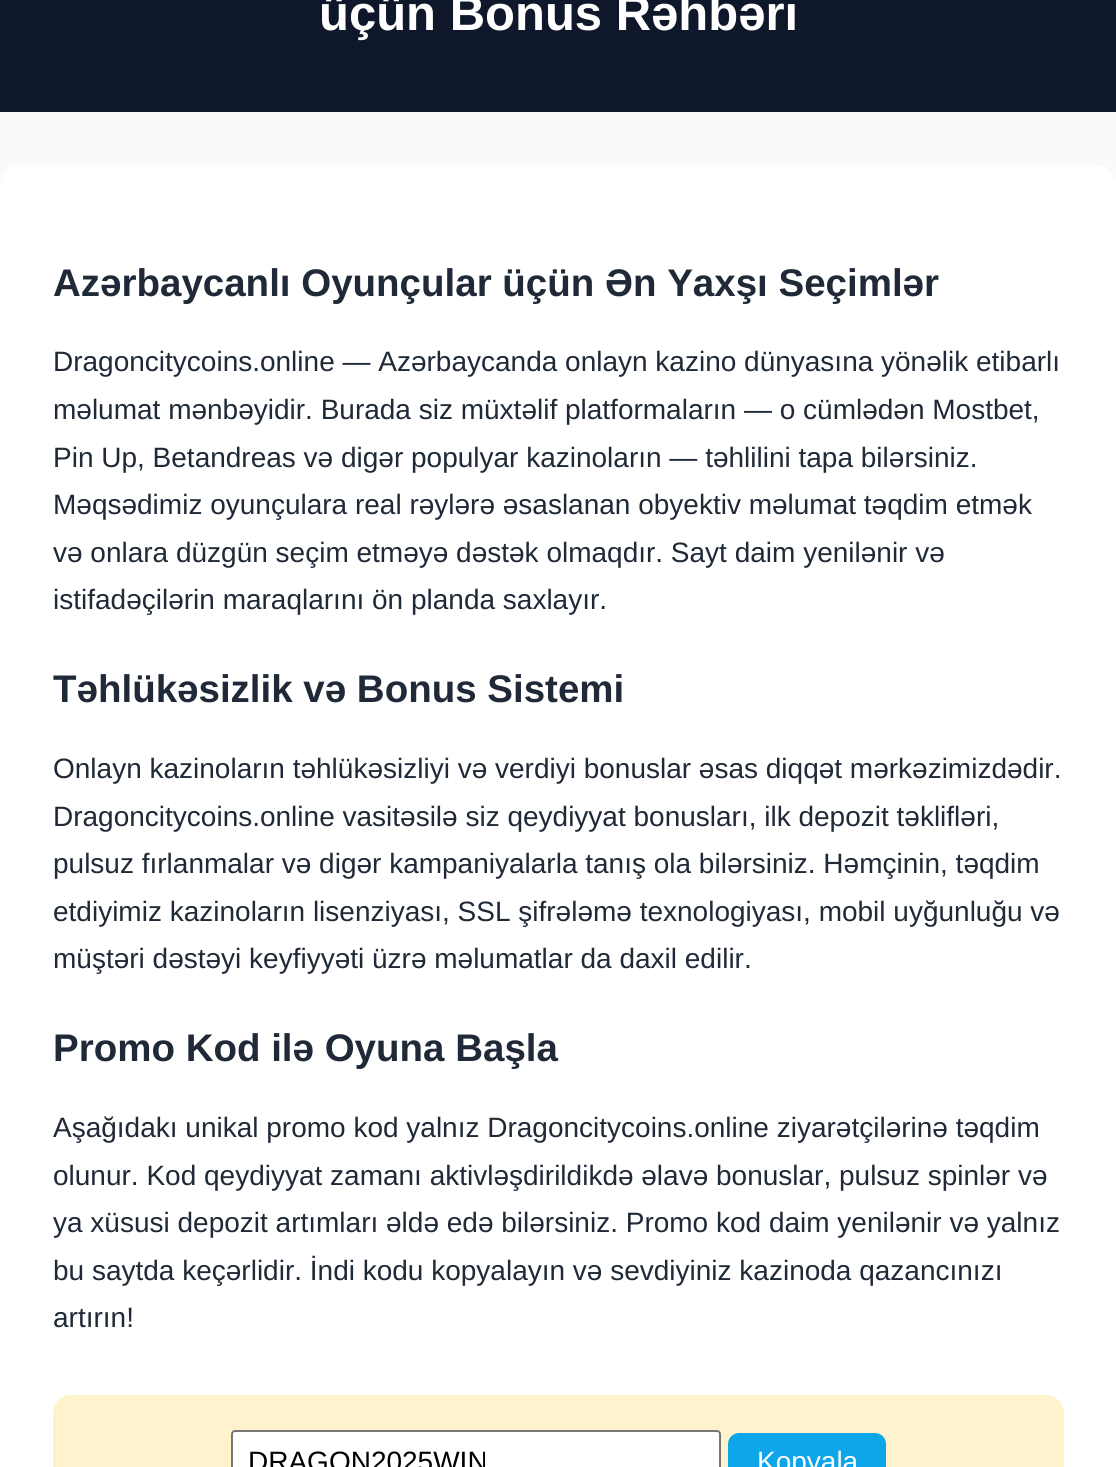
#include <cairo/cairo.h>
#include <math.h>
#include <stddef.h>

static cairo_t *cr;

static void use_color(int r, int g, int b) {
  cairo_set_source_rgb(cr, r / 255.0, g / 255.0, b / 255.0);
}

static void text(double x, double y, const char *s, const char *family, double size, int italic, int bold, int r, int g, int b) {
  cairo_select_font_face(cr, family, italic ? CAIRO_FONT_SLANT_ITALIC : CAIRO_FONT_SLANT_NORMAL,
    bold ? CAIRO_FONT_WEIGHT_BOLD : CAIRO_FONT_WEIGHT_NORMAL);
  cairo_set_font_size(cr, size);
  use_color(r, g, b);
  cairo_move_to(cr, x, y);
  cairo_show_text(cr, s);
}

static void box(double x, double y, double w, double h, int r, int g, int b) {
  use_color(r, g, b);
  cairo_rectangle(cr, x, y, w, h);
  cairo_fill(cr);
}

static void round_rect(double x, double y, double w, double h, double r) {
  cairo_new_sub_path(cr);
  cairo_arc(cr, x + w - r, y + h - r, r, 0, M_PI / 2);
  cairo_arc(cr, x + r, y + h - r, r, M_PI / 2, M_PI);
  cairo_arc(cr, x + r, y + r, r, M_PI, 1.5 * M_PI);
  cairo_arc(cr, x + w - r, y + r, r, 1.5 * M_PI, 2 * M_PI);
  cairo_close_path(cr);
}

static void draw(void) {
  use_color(249, 250, 251);
  cairo_paint(cr);
  box(0, 0, 1116, 112, 15, 23, 42);
  use_color(255, 255, 255);
  round_rect(0, 165, 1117, 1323, 21);
  cairo_fill(cr);
  use_color(255, 243, 205);
  round_rect(53, 1395, 1011, 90, 18);
  cairo_fill(cr);
  use_color(255, 255, 255);
  round_rect(232, 1431, 488, 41, 3);
  cairo_fill_preserve(cr);
  use_color(118, 118, 118);
  cairo_stroke(cr);
  use_color(14, 165, 233);
  round_rect(728, 1433, 158, 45, 11);
  cairo_fill(cr);
  text(319, 30, "üçün Bonus Rəhbəri", "Liberation Sans", 49, 0, 1, 255, 255, 255);
  text(53, 296, "Azərbaycanlı Oyunçular üçün Ən Yaxşı Seçimlər", "Liberation Sans", 38.5, 0, 1, 31, 41, 55);
  text(53, 371, "Dragoncitycoins.online — Azərbaycanda onlayn kazino dünyasına yönəlik etibarlı", "Liberation Sans", 28, 0, 0, 31, 41, 55);
  text(53, 419, "məlumat mənbəyidir. Burada siz müxtəlif platformaların — o cümlədən Mostbet,", "Liberation Sans", 28, 0, 0, 31, 41, 55);
  text(53, 467, "Pin Up, Betandreas və digər populyar kazinoların — təhlilini tapa bilərsiniz.", "Liberation Sans", 28, 0, 0, 31, 41, 55);
  text(53, 514, "Məqsədimiz oyunçulara real rəylərə əsaslanan obyektiv məlumat təqdim etmək", "Liberation Sans", 28, 0, 0, 31, 41, 55);
  text(53, 562, "və onlara düzgün seçim etməyə dəstək olmaqdır. Sayt daim yenilənir və", "Liberation Sans", 28, 0, 0, 31, 41, 55);
  text(53, 609, "istifadəçilərin maraqlarını ön planda saxlayır.", "Liberation Sans", 28, 0, 0, 31, 41, 55);
  text(53, 702, "Təhlükəsizlik və Bonus Sistemi", "Liberation Sans", 38.5, 0, 1, 31, 41, 55);
  text(53, 778, "Onlayn kazinoların təhlükəsizliyi və verdiyi bonuslar əsas diqqət mərkəzimizdədir.", "Liberation Sans", 28, 0, 0, 31, 41, 55);
  text(53, 826, "Dragoncitycoins.online vasitəsilə siz qeydiyyat bonusları, ilk depozit təklifləri,", "Liberation Sans", 28, 0, 0, 31, 41, 55);
  text(53, 873, "pulsuz fırlanmalar və digər kampaniyalarla tanış ola bilərsiniz. Həmçinin, təqdim", "Liberation Sans", 28, 0, 0, 31, 41, 55);
  text(53, 921, "etdiyimiz kazinoların lisenziyası, SSL şifrələmə texnologiyası, mobil uyğunluğu və", "Liberation Sans", 28, 0, 0, 31, 41, 55);
  text(53, 968, "müştəri dəstəyi keyfiyyəti üzrə məlumatlar da daxil edilir.", "Liberation Sans", 28, 0, 0, 31, 41, 55);
  text(53, 1061, "Promo Kod ilə Oyuna Başla", "Liberation Sans", 38.5, 0, 1, 31, 41, 55);
  text(53, 1137, "Aşağıdakı unikal promo kod yalnız Dragoncitycoins.online ziyarətçilərinə təqdim", "Liberation Sans", 28, 0, 0, 31, 41, 55);
  text(53, 1185, "olunur. Kod qeydiyyat zamanı aktivləşdirildikdə əlavə bonuslar, pulsuz spinlər və", "Liberation Sans", 28, 0, 0, 31, 41, 55);
  text(53, 1232, "ya xüsusi depozit artımları əldə edə bilərsiniz. Promo kod daim yenilənir və yalnız", "Liberation Sans", 28, 0, 0, 31, 41, 55);
  text(53, 1280, "bu saytda keçərlidir. İndi kodu kopyalayın və sevdiyiniz kazinoda qazancınızı", "Liberation Sans", 28, 0, 0, 31, 41, 55);
  text(53, 1327, "artırın!", "Liberation Sans", 28, 0, 0, 31, 41, 55);
  text(248, 1471, "DRAGON2025WIN", "Liberation Sans", 28, 0, 0, 0, 0, 0);
  text(757, 1471, "Kopyala", "Liberation Sans", 28, 0, 0, 255, 255, 255);
}

int main(void) {
  cairo_surface_t *surface = cairo_image_surface_create(CAIRO_FORMAT_RGB24, 1116, 1467);
  cr = cairo_create(surface);
  cairo_font_options_t *options = cairo_font_options_create();
  cairo_font_options_set_hint_metrics(options, CAIRO_HINT_METRICS_OFF);
  cairo_font_options_set_hint_style(options, CAIRO_HINT_STYLE_NONE);
  cairo_set_font_options(cr, options);
  cairo_set_miter_limit(cr, 4);
  draw();
  cairo_surface_write_to_png(surface, "out.png");
  cairo_font_options_destroy(options);
  cairo_destroy(cr);
  cairo_surface_destroy(surface);
  return 0;
}
